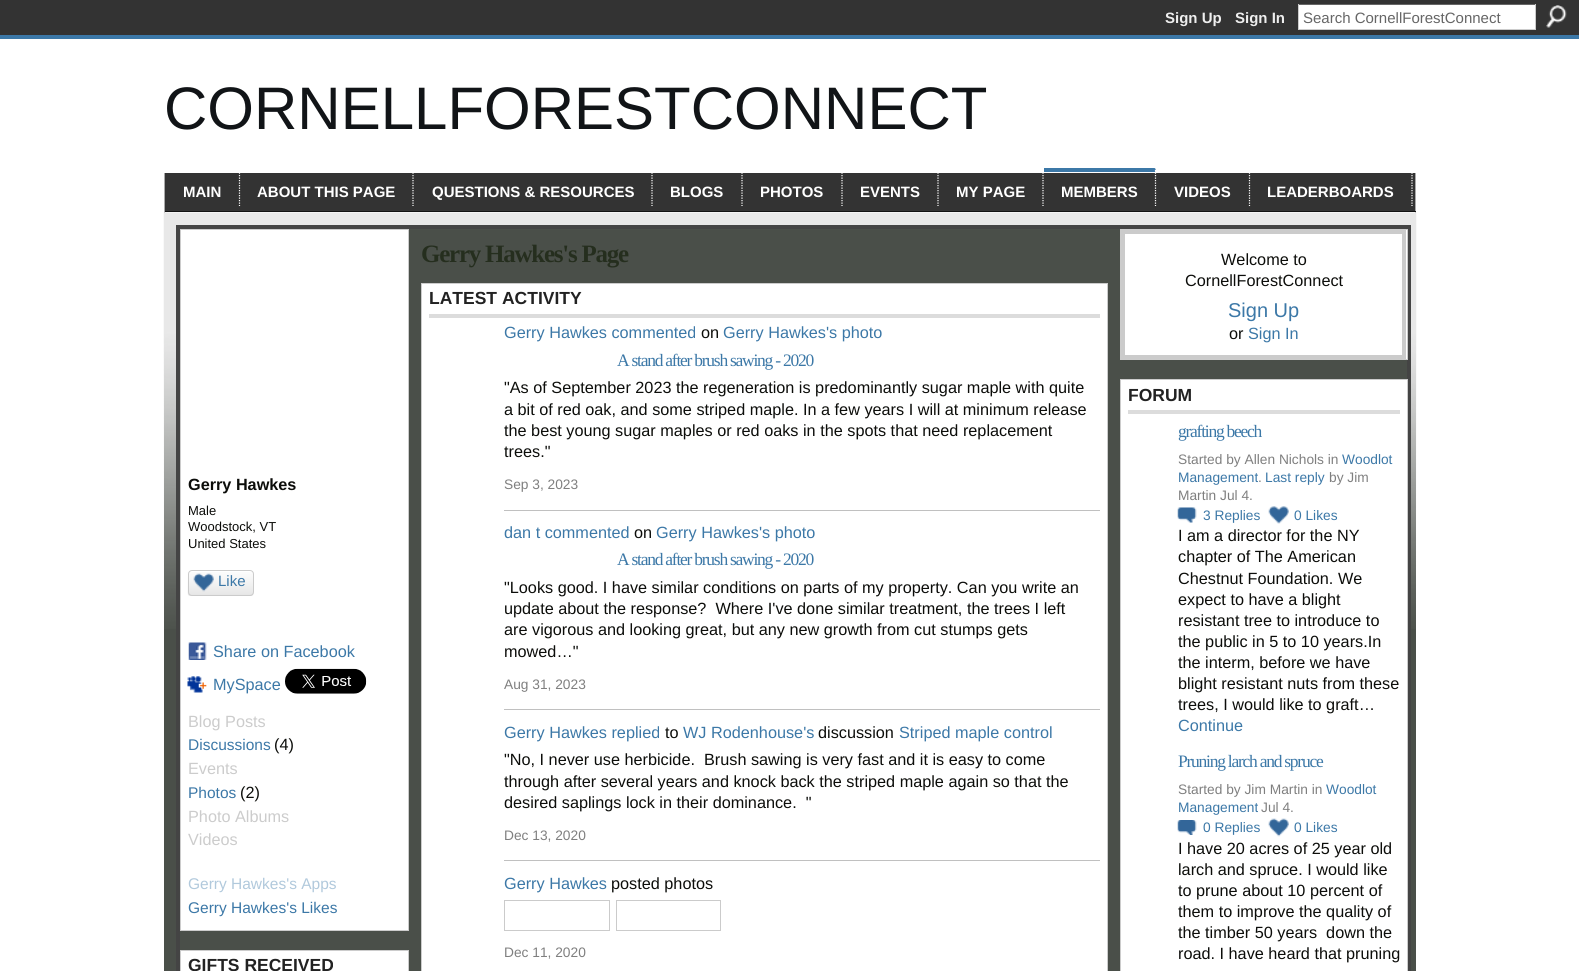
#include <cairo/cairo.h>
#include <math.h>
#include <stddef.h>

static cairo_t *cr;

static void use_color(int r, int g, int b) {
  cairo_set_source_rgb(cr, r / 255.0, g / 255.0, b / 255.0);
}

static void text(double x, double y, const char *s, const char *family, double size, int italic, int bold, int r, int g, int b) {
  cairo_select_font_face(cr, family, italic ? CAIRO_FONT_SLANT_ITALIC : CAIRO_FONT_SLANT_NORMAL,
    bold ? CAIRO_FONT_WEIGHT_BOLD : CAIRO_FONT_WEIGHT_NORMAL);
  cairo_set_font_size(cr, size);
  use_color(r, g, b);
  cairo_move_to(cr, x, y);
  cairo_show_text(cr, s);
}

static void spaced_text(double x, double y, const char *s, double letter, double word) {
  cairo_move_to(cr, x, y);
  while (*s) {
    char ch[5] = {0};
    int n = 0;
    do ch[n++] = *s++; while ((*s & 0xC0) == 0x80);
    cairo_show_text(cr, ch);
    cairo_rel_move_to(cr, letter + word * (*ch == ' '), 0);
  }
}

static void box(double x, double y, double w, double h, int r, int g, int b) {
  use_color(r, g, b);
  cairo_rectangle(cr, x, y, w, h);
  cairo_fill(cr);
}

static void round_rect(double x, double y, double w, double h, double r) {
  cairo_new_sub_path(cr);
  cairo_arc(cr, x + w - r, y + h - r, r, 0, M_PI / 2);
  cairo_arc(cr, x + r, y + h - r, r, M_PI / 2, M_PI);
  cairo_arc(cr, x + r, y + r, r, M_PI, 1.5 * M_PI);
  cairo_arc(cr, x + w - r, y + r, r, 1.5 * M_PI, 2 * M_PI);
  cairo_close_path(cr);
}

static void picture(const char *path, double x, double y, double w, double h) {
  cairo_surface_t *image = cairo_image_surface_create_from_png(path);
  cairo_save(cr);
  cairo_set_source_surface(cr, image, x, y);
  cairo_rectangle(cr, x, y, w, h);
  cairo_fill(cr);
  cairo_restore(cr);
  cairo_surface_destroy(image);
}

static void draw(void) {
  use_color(255, 255, 255);
  cairo_paint(cr);
  box(0, 0, 1579, 35, 51, 51, 51);
  box(1299, 5, 236, 24, 255, 255, 255);
  box(1298, 4, 238, 1, 102, 102, 102);
  box(1535, 4, 1, 26, 204, 204, 204);
  box(1298, 29, 238, 1, 204, 204, 204);
  box(1298, 4, 1, 26, 204, 204, 204);
  picture("img_01.png", 1546, 5, 21, 23);
  box(0, 35, 1579, 4, 60, 120, 167);
  box(165, 173, 1250, 38, 51, 51, 51);
  box(1415, 173, 1, 40, 170, 170, 170);
  box(164, 211, 1252, 1, 17, 17, 17);
  box(164, 173, 1, 40, 170, 170, 170);
  cairo_new_path(cr);
  cairo_move_to(cr, 239.5, 167.5);
  cairo_line_to(cr, 239.5, 206);
  use_color(255, 255, 255);
  cairo_set_line_width(cr, 1.2);
  cairo_set_dash(cr, (double[]){1.25, 1.25}, 2, 0);
  cairo_stroke(cr);
  cairo_new_path(cr);
  cairo_move_to(cr, 413, 167.5);
  cairo_line_to(cr, 413, 206);
  cairo_stroke(cr);
  cairo_new_path(cr);
  cairo_move_to(cr, 652, 167.5);
  cairo_line_to(cr, 652, 206);
  cairo_stroke(cr);
  cairo_new_path(cr);
  cairo_move_to(cr, 742, 167.5);
  cairo_line_to(cr, 742, 206);
  cairo_stroke(cr);
  cairo_new_path(cr);
  cairo_move_to(cr, 842, 167.5);
  cairo_line_to(cr, 842, 206);
  cairo_stroke(cr);
  cairo_new_path(cr);
  cairo_move_to(cr, 938, 167.5);
  cairo_line_to(cr, 938, 206);
  cairo_stroke(cr);
  cairo_new_path(cr);
  cairo_move_to(cr, 1043, 167.5);
  cairo_line_to(cr, 1043, 206);
  cairo_stroke(cr);
  use_color(60, 120, 167);
  cairo_new_path(cr);
  cairo_move_to(cr, 1044, 168);
  cairo_line_to(cr, 1156, 168);
  cairo_line_to(cr, 1155, 172);
  cairo_line_to(cr, 1044, 172);
  cairo_close_path(cr);
  cairo_fill(cr);
  cairo_new_path(cr);
  cairo_move_to(cr, 1155.5, 167.5);
  cairo_line_to(cr, 1155.5, 206);
  use_color(255, 255, 255);
  cairo_stroke(cr);
  cairo_new_path(cr);
  cairo_move_to(cr, 1249.5, 167.5);
  cairo_line_to(cr, 1249.5, 206);
  cairo_stroke(cr);
  cairo_new_path(cr);
  cairo_move_to(cr, 1412, 167.5);
  cairo_line_to(cr, 1412, 206);
  cairo_stroke(cr);
  box(164, 334, 1252, 637, 74, 79, 73);
  picture("img_02.png", 163, 212, 1254, 417);
  box(180, 229, 1227, 400, 74, 79, 73);
  cairo_rectangle(cr, 178, 227, 1231, 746);
  use_color(68, 68, 68);
  cairo_set_line_width(cr, 4);
  cairo_set_dash(cr, NULL, 0, 0);
  cairo_stroke(cr);
  use_color(255, 255, 255);
  cairo_rectangle(cr, 180.5, 229.5, 228, 701);
  cairo_fill_preserve(cr);
  use_color(204, 204, 204);
  cairo_set_line_width(cr, 1);
  cairo_stroke(cr);
  picture("img_03.png", 187, 572, 67, 24);
  round_rect(188.5, 570.5, 65, 25, 3.5);
  use_color(203, 203, 203);
  cairo_stroke(cr);
  picture("img_04.png", 193, 573, 21, 19);
  picture("img_05.png", 188, 642, 19, 18);
  picture("img_06.png", 187, 676, 20, 17);
  picture("img_07.png", 285, 668, 82, 26);
  use_color(255, 255, 255);
  cairo_rectangle(cr, 180.5, 950.5, 228, 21);
  cairo_fill_preserve(cr);
  use_color(204, 204, 204);
  cairo_stroke(cr);
  use_color(255, 255, 255);
  cairo_rectangle(cr, 421.5, 283.5, 686, 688);
  cairo_fill_preserve(cr);
  use_color(204, 204, 204);
  cairo_stroke(cr);
  box(429, 314, 671, 4, 220, 220, 220);
  box(504, 510, 596, 1, 192, 192, 192);
  box(504, 709, 596, 1, 192, 192, 192);
  box(504, 860, 596, 1, 192, 192, 192);
  cairo_rectangle(cr, 504.5, 900.5, 105, 30);
  use_color(203, 203, 203);
  cairo_stroke(cr);
  cairo_rectangle(cr, 616.5, 900.5, 104, 30);
  cairo_stroke(cr);
  box(1125, 230, 282, 129, 255, 255, 255);
  cairo_rectangle(cr, 1120.5, 229.5, 287, 130);
  use_color(204, 204, 204);
  cairo_stroke(cr);
  cairo_rectangle(cr, 1123, 232, 281, 125);
  use_color(203, 203, 203);
  cairo_set_line_width(cr, 4);
  cairo_stroke(cr);
  use_color(255, 255, 255);
  cairo_rectangle(cr, 1120.5, 379.5, 287, 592);
  cairo_fill_preserve(cr);
  use_color(204, 204, 204);
  cairo_set_line_width(cr, 1);
  cairo_stroke(cr);
  box(1128, 410, 272, 4, 220, 220, 220);
  picture("img_08.png", 1177, 507, 20, 16);
  picture("img_09.png", 1268, 506, 21, 18);
  picture("img_10.png", 1177, 820, 20, 15);
  picture("img_11.png", 1268, 818, 21, 19);
  text(1165, 23, "Sign Up", "Liberation Sans", 15, 0, 1, 238, 238, 238);
  text(1235, 23, "Sign In", "Liberation Sans", 15, 0, 1, 238, 238, 238);
  text(1303, 23, "Search CornellForestConnect", "Liberation Sans", 15, 0, 0, 102, 102, 102);
  text(164, 129, "CORNELLFORESTCONNECT", "Liberation Sans", 60, 0, 0, 17, 20, 23);
  text(183, 197, "MAIN", "Liberation Sans", 15, 0, 1, 255, 255, 255);
  text(257, 197, "ABOUT THIS PAGE", "Liberation Sans", 15, 0, 1, 255, 255, 255);
  text(432, 197, "QUESTIONS & RESOURCES", "Liberation Sans", 15, 0, 1, 255, 255, 255);
  text(670, 197, "BLOGS", "Liberation Sans", 15, 0, 1, 255, 255, 255);
  text(760, 197, "PHOTOS", "Liberation Sans", 15, 0, 1, 255, 255, 255);
  text(860, 197, "EVENTS", "Liberation Sans", 15, 0, 1, 255, 255, 255);
  text(956, 197, "MY PAGE", "Liberation Sans", 15, 0, 1, 255, 255, 255);
  text(1061, 197, "MEMBERS", "Liberation Sans", 15, 0, 1, 255, 255, 255);
  text(1174, 197, "VIDEOS", "Liberation Sans", 15, 0, 1, 255, 255, 255);
  text(1267, 197, "LEADERBOARDS", "Liberation Sans", 15, 0, 1, 255, 255, 255);
  text(188, 490, "Gerry Hawkes", "Liberation Sans", 16.25, 0, 1, 12, 13, 10);
  text(188, 515, "Male", "Liberation Sans", 13, 0, 0, 12, 13, 10);
  text(188, 531, "Woodstock, VT", "Liberation Sans", 13, 0, 0, 12, 13, 10);
  text(188, 548, "United States", "Liberation Sans", 13, 0, 0, 12, 13, 10);
  text(218, 586, "Like", "Liberation Sans", 15, 0, 0, 60, 120, 167);
  text(213, 657, "Share on Facebook", "Liberation Sans", 16.25, 0, 0, 60, 120, 167);
  text(213, 690, "MySpace", "Liberation Sans", 16.25, 0, 0, 60, 120, 167);
  text(188, 727, "Blog Posts", "Liberation Sans", 16.25, 0, 0, 204, 204, 204);
  text(188, 750, "Discussions", "Liberation Sans", 15.5, 0, 0, 60, 120, 167);
  text(274, 750, "(4)", "Liberation Sans", 16.25, 0, 0, 12, 13, 10);
  text(188, 774, "Events", "Liberation Sans", 16.25, 0, 0, 204, 204, 204);
  text(188, 798, "Photos", "Liberation Sans", 15.5, 0, 0, 60, 120, 167);
  text(240, 798, "(2)", "Liberation Sans", 16.25, 0, 0, 12, 13, 10);
  text(188, 822, "Photo Albums", "Liberation Sans", 16.25, 0, 0, 204, 204, 204);
  text(188, 845, "Videos", "Liberation Sans", 16.25, 0, 0, 204, 204, 204);
  text(188, 889, "Gerry Hawkes's Apps", "Liberation Sans", 15.5, 0, 0, 177, 201, 220);
  text(188, 913, "Gerry Hawkes's Likes", "Liberation Sans", 15.5, 0, 0, 60, 120, 167);
  text(188, 971, "GIFTS RECEIVED", "Liberation Sans", 17.5, 0, 1, 34, 34, 34);
  cairo_select_font_face(cr, "Liberation Serif", CAIRO_FONT_SLANT_NORMAL, CAIRO_FONT_WEIGHT_BOLD);
  cairo_set_font_size(cr, 25);
  use_color(37, 46, 30);
  spaced_text(421, 262, "Gerry Hawkes's Page", -1.25, 0);
  text(429, 304, "LATEST ACTIVITY", "Liberation Sans", 17.5, 0, 1, 34, 34, 34);
  text(504, 338, "Gerry Hawkes commented", "Liberation Sans", 16.25, 0, 0, 60, 120, 167);
  text(701, 338, "on", "Liberation Sans", 16.25, 0, 0, 12, 13, 10);
  text(723, 338, "Gerry Hawkes's photo", "Liberation Sans", 16.25, 0, 0, 60, 120, 167);
  cairo_select_font_face(cr, "Liberation Serif", CAIRO_FONT_SLANT_NORMAL, CAIRO_FONT_WEIGHT_NORMAL);
  cairo_set_font_size(cr, 17.5);
  spaced_text(617, 366, "A stand after brush sawing - 2020", -1.25, 0);
  text(504, 393, "\"As of September 2023 the regeneration is predominantly sugar maple with quite", "Liberation Sans", 16.25, 0, 0, 12, 13, 10);
  text(504, 415, "a bit of red oak, and some striped maple. In a few years I will at minimum release", "Liberation Sans", 16.25, 0, 0, 12, 13, 10);
  text(504, 436, "the best young sugar maples or red oaks in the spots that need replacement", "Liberation Sans", 16.25, 0, 0, 12, 13, 10);
  text(504, 457, "trees.\"", "Liberation Sans", 16.25, 0, 0, 12, 13, 10);
  text(504, 489, "Sep 3, 2023", "Liberation Sans", 13.75, 0, 0, 127, 127, 127);
  text(504, 538, "dan t commented", "Liberation Sans", 16.25, 0, 0, 60, 120, 167);
  text(634, 538, "on", "Liberation Sans", 16.25, 0, 0, 12, 13, 10);
  text(656, 538, "Gerry Hawkes's photo", "Liberation Sans", 16.25, 0, 0, 60, 120, 167);
  cairo_select_font_face(cr, "Liberation Serif", CAIRO_FONT_SLANT_NORMAL, CAIRO_FONT_WEIGHT_NORMAL);
  cairo_set_font_size(cr, 17.5);
  spaced_text(617, 565, "A stand after brush sawing - 2020", -1.25, 0);
  text(504, 593, "\"Looks good. I have similar conditions on parts of my property. Can you write an", "Liberation Sans", 16.25, 0, 0, 12, 13, 10);
  text(504, 614, "update about the response?  Where I've done similar treatment, the trees I left", "Liberation Sans", 16.25, 0, 0, 12, 13, 10);
  text(504, 635, "are vigorous and looking great, but any new growth from cut stumps gets", "Liberation Sans", 16.25, 0, 0, 12, 13, 10);
  text(504, 657, "mowed…\"", "Liberation Sans", 16.25, 0, 0, 12, 13, 10);
  text(504, 689, "Aug 31, 2023", "Liberation Sans", 13.75, 0, 0, 127, 127, 127);
  text(504, 738, "Gerry Hawkes replied", "Liberation Sans", 16.25, 0, 0, 60, 120, 167);
  text(665, 738, "to", "Liberation Sans", 16.25, 0, 0, 12, 13, 10);
  text(683, 738, "WJ Rodenhouse's", "Liberation Sans", 16.25, 0, 0, 60, 120, 167);
  text(818, 738, "discussion", "Liberation Sans", 16.25, 0, 0, 12, 13, 10);
  text(899, 738, "Striped maple control", "Liberation Sans", 16.25, 0, 0, 60, 120, 167);
  text(504, 765, "\"No, I never use herbicide.  Brush sawing is very fast and it is easy to come", "Liberation Sans", 16.25, 0, 0, 12, 13, 10);
  text(504, 787, "through after several years and knock back the striped maple again so that the", "Liberation Sans", 16.25, 0, 0, 12, 13, 10);
  text(504, 808, "desired saplings lock in their dominance.  \"", "Liberation Sans", 16.25, 0, 0, 12, 13, 10);
  text(504, 840, "Dec 13, 2020", "Liberation Sans", 13.75, 0, 0, 127, 127, 127);
  text(504, 889, "Gerry Hawkes", "Liberation Sans", 16.25, 0, 0, 60, 120, 167);
  text(611, 889, "posted photos", "Liberation Sans", 16.25, 0, 0, 12, 13, 10);
  text(504, 957, "Dec 11, 2020", "Liberation Sans", 13.75, 0, 0, 127, 127, 127);
  text(1221, 265, "Welcome to", "Liberation Sans", 16.25, 0, 0, 12, 13, 10);
  text(1185, 286, "CornellForestConnect", "Liberation Sans", 16.25, 0, 0, 12, 13, 10);
  text(1228, 317, "Sign Up", "Liberation Sans", 20, 0, 0, 60, 120, 167);
  text(1229, 339, "or", "Liberation Sans", 16.25, 0, 0, 12, 13, 10);
  text(1248, 339, "Sign In", "Liberation Sans", 16.25, 0, 0, 60, 120, 167);
  text(1128, 401, "FORUM", "Liberation Sans", 17.5, 0, 1, 34, 34, 34);
  cairo_select_font_face(cr, "Liberation Serif", CAIRO_FONT_SLANT_NORMAL, CAIRO_FONT_WEIGHT_NORMAL);
  use_color(60, 120, 167);
  spaced_text(1178, 437, "grafting beech", -1.25, 0);
  text(1178, 464, "Started by Allen Nichols in", "Liberation Sans", 13.75, 0, 0, 127, 127, 127);
  text(1342, 464, "Woodlot", "Liberation Sans", 13.75, 0, 0, 60, 120, 167);
  text(1178, 482, "Management", "Liberation Sans", 13.75, 0, 0, 60, 120, 167);
  text(1258, 482, ".", "Liberation Sans", 13.75, 0, 0, 127, 127, 127);
  text(1265, 482, "Last reply", "Liberation Sans", 13.75, 0, 0, 60, 120, 167);
  text(1329, 482, "by Jim", "Liberation Sans", 13.75, 0, 0, 127, 127, 127);
  text(1178, 500, "Martin Jul 4.", "Liberation Sans", 13.75, 0, 0, 127, 127, 127);
  text(1203, 520, "3 Replies", "Liberation Sans", 13.75, 0, 0, 60, 120, 167);
  text(1294, 520, "0 Likes", "Liberation Sans", 13.75, 0, 0, 60, 120, 167);
  text(1178, 541, "I am a director for the NY", "Liberation Sans", 16.25, 0, 0, 12, 13, 10);
  text(1178, 562, "chapter of The American", "Liberation Sans", 16.25, 0, 0, 12, 13, 10);
  text(1178, 584, "Chestnut Foundation. We", "Liberation Sans", 16.25, 0, 0, 12, 13, 10);
  text(1178, 605, "expect to have a blight", "Liberation Sans", 16.25, 0, 0, 12, 13, 10);
  text(1178, 626, "resistant tree to introduce to", "Liberation Sans", 16.25, 0, 0, 12, 13, 10);
  text(1178, 647, "the public in 5 to 10 years.In", "Liberation Sans", 16.25, 0, 0, 12, 13, 10);
  text(1178, 668, "the interm, before we have", "Liberation Sans", 16.25, 0, 0, 12, 13, 10);
  text(1178, 689, "blight resistant nuts from these", "Liberation Sans", 16.25, 0, 0, 12, 13, 10);
  text(1178, 710, "trees, I would like to graft…", "Liberation Sans", 16.25, 0, 0, 12, 13, 10);
  text(1178, 731, "Continue", "Liberation Sans", 16.25, 0, 0, 60, 120, 167);
  cairo_select_font_face(cr, "Liberation Serif", CAIRO_FONT_SLANT_NORMAL, CAIRO_FONT_WEIGHT_NORMAL);
  cairo_set_font_size(cr, 17.5);
  spaced_text(1178, 767, "Pruning larch and spruce", -1.25, 0);
  text(1178, 794, "Started by Jim Martin in", "Liberation Sans", 13.75, 0, 0, 127, 127, 127);
  text(1326, 794, "Woodlot", "Liberation Sans", 13.75, 0, 0, 60, 120, 167);
  text(1178, 812, "Management", "Liberation Sans", 13.75, 0, 0, 60, 120, 167);
  text(1261, 812, "Jul 4.", "Liberation Sans", 13.75, 0, 0, 127, 127, 127);
  text(1203, 832, "0 Replies", "Liberation Sans", 13.75, 0, 0, 60, 120, 167);
  text(1294, 832, "0 Likes", "Liberation Sans", 13.75, 0, 0, 60, 120, 167);
  text(1178, 854, "I have 20 acres of 25 year old", "Liberation Sans", 16.25, 0, 0, 12, 13, 10);
  text(1178, 875, "larch and spruce. I would like", "Liberation Sans", 16.25, 0, 0, 12, 13, 10);
  text(1178, 896, "to prune about 10 percent of", "Liberation Sans", 16.25, 0, 0, 12, 13, 10);
  text(1178, 917, "them to improve the quality of", "Liberation Sans", 16.25, 0, 0, 12, 13, 10);
  text(1178, 938, "the timber 50 years  down the", "Liberation Sans", 16.25, 0, 0, 12, 13, 10);
  text(1178, 959, "road. I have heard that pruning", "Liberation Sans", 16.25, 0, 0, 12, 13, 10);
}

int main(void) {
  cairo_surface_t *surface = cairo_image_surface_create(CAIRO_FORMAT_RGB24, 1579, 971);
  cr = cairo_create(surface);
  cairo_font_options_t *options = cairo_font_options_create();
  cairo_font_options_set_hint_metrics(options, CAIRO_HINT_METRICS_OFF);
  cairo_font_options_set_hint_style(options, CAIRO_HINT_STYLE_NONE);
  cairo_set_font_options(cr, options);
  cairo_set_miter_limit(cr, 4);
  draw();
  cairo_surface_write_to_png(surface, "out.png");
  cairo_font_options_destroy(options);
  cairo_destroy(cr);
  cairo_surface_destroy(surface);
  return 0;
}
